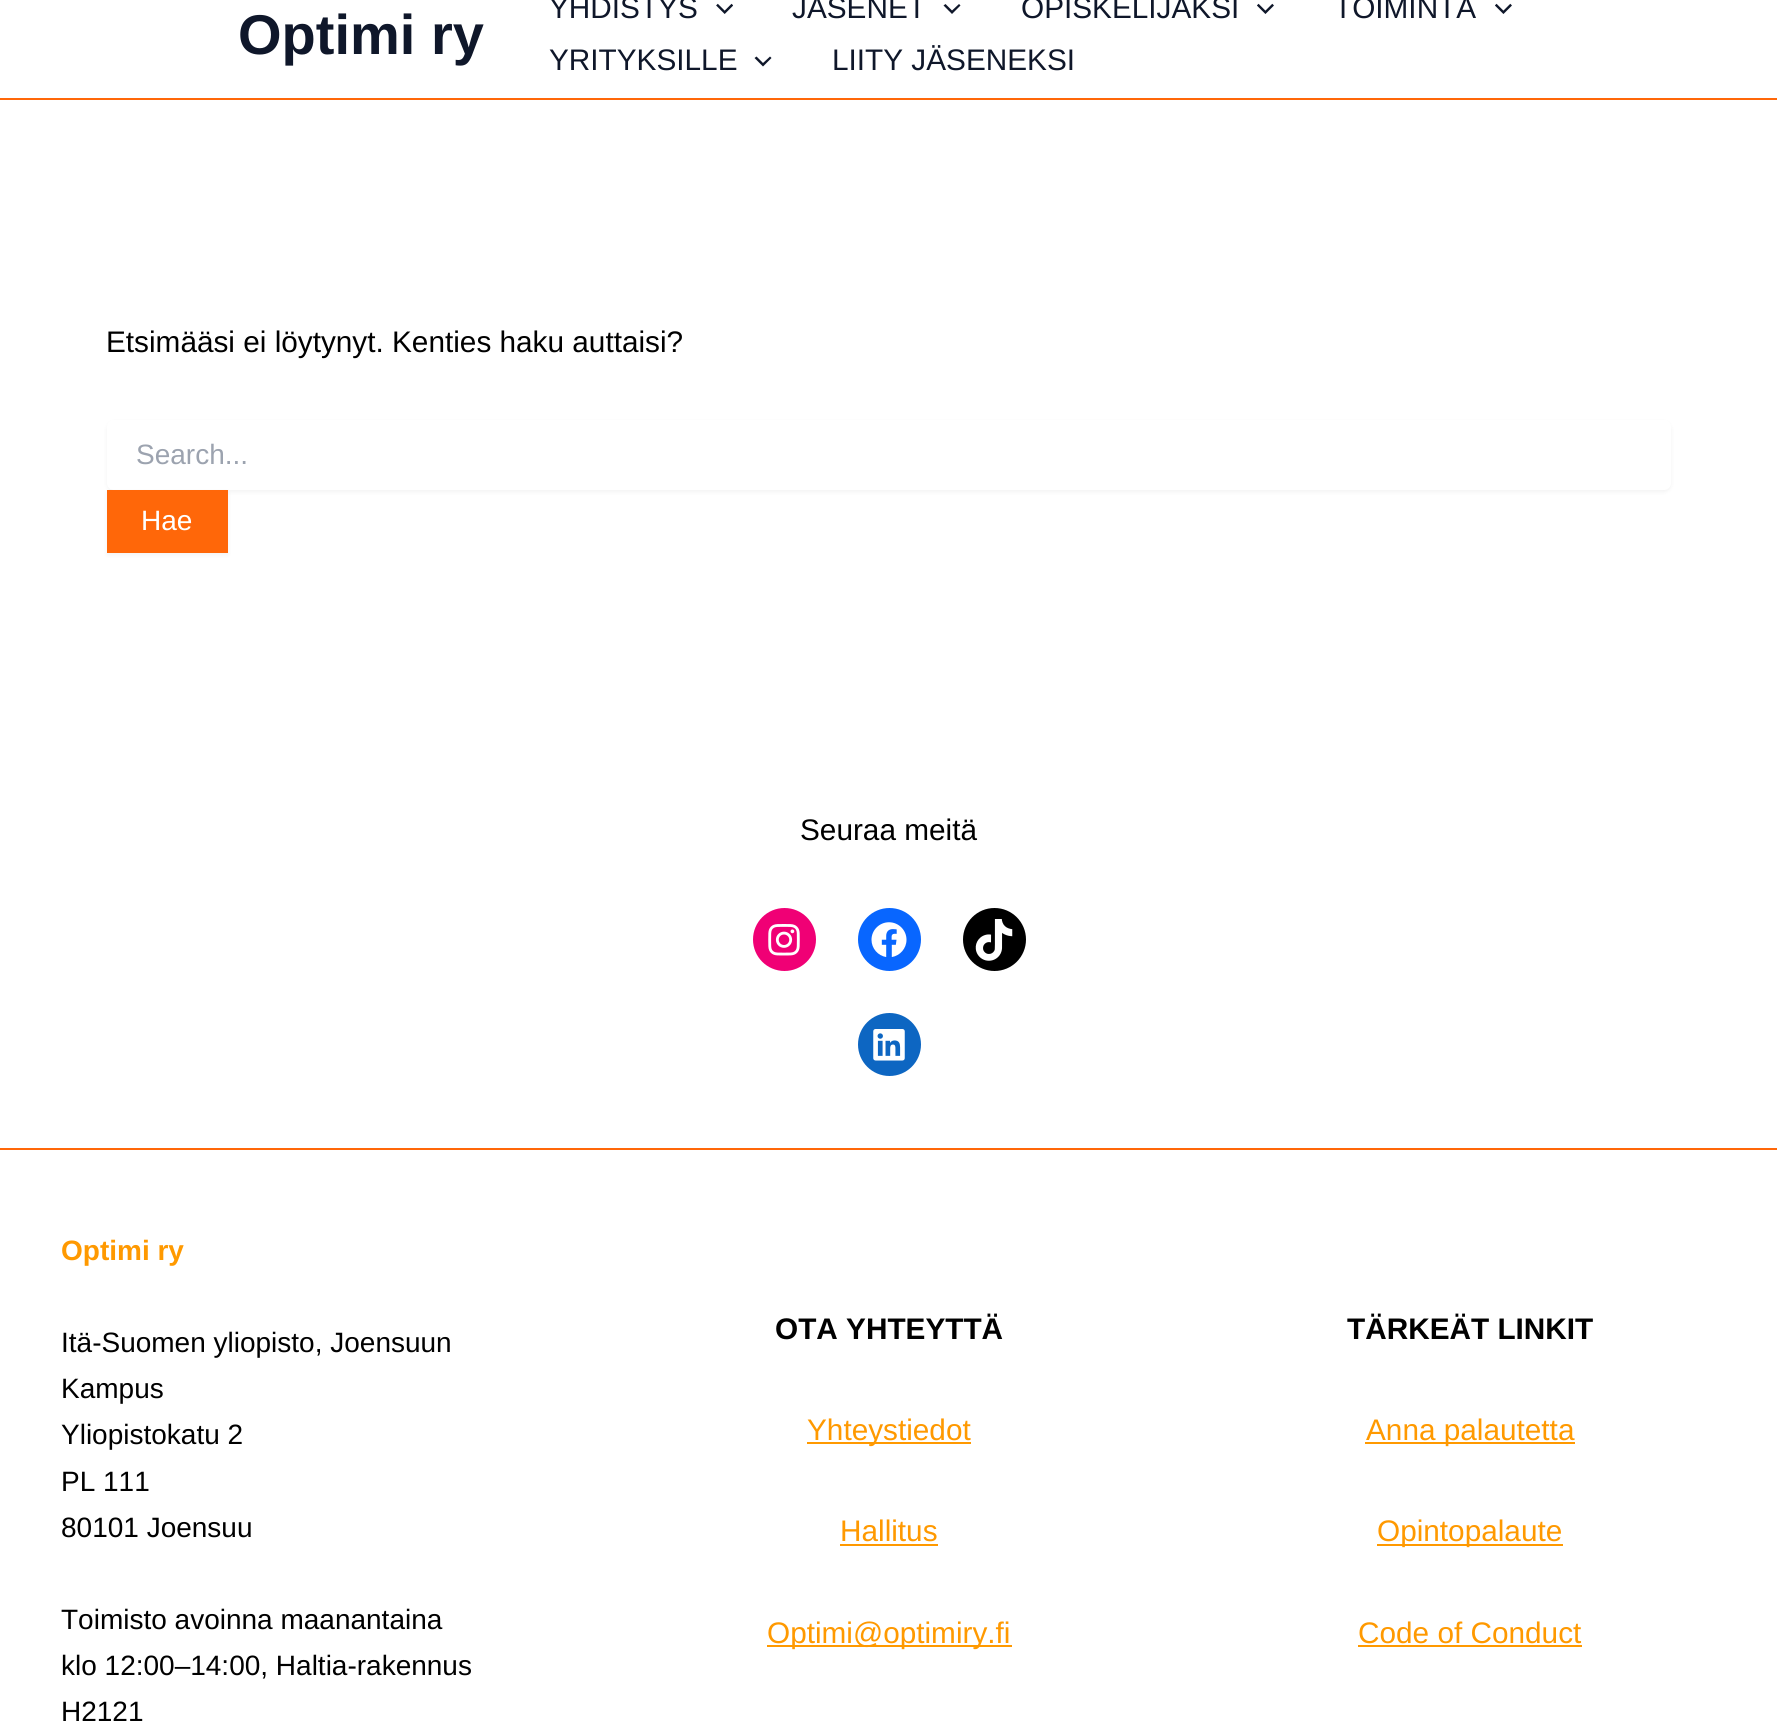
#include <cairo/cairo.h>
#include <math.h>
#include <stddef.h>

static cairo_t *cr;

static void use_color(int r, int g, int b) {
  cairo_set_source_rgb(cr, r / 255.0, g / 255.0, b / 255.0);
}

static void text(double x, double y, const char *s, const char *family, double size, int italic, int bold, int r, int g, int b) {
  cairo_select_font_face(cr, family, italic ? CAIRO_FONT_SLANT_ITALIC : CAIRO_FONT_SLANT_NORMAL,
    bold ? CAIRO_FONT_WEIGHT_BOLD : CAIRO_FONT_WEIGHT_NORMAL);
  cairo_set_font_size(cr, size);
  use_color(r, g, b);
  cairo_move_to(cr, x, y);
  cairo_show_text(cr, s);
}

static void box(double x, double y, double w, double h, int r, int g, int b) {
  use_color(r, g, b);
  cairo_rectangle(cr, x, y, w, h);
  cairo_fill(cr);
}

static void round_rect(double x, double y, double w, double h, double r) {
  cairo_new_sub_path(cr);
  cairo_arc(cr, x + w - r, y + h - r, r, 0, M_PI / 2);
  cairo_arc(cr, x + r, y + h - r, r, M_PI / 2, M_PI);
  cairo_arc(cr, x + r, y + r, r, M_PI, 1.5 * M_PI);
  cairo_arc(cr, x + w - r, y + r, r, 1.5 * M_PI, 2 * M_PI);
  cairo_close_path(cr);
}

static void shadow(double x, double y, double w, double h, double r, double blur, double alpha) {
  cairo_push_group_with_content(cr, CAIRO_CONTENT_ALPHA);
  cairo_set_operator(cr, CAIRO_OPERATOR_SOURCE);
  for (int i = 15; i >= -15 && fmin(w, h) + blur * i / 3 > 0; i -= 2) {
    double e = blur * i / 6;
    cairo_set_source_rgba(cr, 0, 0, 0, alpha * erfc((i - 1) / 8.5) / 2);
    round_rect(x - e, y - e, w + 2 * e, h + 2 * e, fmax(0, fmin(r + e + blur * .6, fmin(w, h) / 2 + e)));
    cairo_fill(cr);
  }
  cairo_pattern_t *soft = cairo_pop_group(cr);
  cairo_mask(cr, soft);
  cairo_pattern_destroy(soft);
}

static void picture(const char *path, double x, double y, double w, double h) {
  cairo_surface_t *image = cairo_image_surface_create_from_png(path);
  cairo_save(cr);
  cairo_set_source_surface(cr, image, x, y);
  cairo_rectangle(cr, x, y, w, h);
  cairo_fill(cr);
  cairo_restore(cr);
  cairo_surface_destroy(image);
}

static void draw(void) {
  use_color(255, 255, 255);
  cairo_paint(cr);
  box(0, 98, 1777, 2, 255, 103, 9);
  picture("img_01.png", 716, 3, 17, 11);
  use_color(15, 23, 42);
  cairo_new_path(cr);
  cairo_move_to(cr, 943.5, 5.5);
  cairo_line_to(cr, 952, 14);
  cairo_line_to(cr, 960.5, 5.5);
  cairo_line_to(cr, 959, 4);
  cairo_line_to(cr, 952, 10.5);
  cairo_line_to(cr, 945.5, 4);
  cairo_close_path(cr);
  cairo_fill(cr);
  picture("img_02.png", 1257, 3, 17, 11);
  picture("img_02.png", 1495, 3, 17, 11);
  cairo_new_path(cr);
  cairo_move_to(cr, 754.5, 58);
  cairo_line_to(cr, 763, 66.5);
  cairo_line_to(cr, 771.5, 58);
  cairo_line_to(cr, 770, 56.5);
  cairo_line_to(cr, 763, 63);
  cairo_line_to(cr, 756.5, 56.5);
  cairo_close_path(cr);
  cairo_fill(cr);
  use_color(0, 0, 0);
  shadow(107, 422, 1564, 70, 7, 2, 0.05);
  use_color(255, 255, 255);
  round_rect(107, 420, 1564, 70, 7);
  cairo_fill(cr);
  use_color(0, 0, 0);
  shadow(107, 492, 121, 63, 0, 2, 0.05);
  box(107, 490, 121, 63, 255, 103, 9);
  use_color(240, 0, 117);
  cairo_arc(cr, 784.5, 939.5, 31.5, 0, 2 * M_PI);
  cairo_fill(cr);
  picture("img_03.png", 768, 924, 32, 32);
  use_color(8, 102, 255);
  cairo_arc(cr, 889.5, 939.5, 31.5, 0, 2 * M_PI);
  cairo_fill(cr);
  picture("img_04.png", 871, 922, 36, 35);
  use_color(0, 0, 0);
  cairo_arc(cr, 994.5, 939.5, 31.5, 0, 2 * M_PI);
  cairo_fill(cr);
  picture("img_05.png", 975, 919, 38, 42);
  use_color(13, 102, 194);
  cairo_arc(cr, 889.5, 1044.5, 31.5, 0, 2 * M_PI);
  cairo_fill(cr);
  picture("img_06.png", 873, 1029, 32, 32);
  box(0, 1148, 1777, 2, 255, 103, 9);
  box(807, 1442, 164, 2, 255, 153, 0);
  box(840, 1544, 98, 2, 255, 153, 0);
  box(767, 1645, 245, 2, 255, 153, 0);
  box(1365, 1442, 210, 2, 255, 153, 0);
  box(1377, 1544, 186, 2, 255, 153, 0);
  box(1358, 1645, 224, 2, 255, 153, 0);
  text(238, 54, "Optimi ry", "Liberation Sans", 56, 0, 1, 15, 23, 42);
  text(549, 18, "YHDISTYS", "Liberation Sans", 29.75, 0, 0, 15, 23, 42);
  text(792, 18, "JÄSENET", "Liberation Sans", 29.75, 0, 0, 15, 23, 42);
  text(1021, 18, "OPISKELIJAKSI", "Liberation Sans", 29.75, 0, 0, 15, 23, 42);
  text(1334, 18, "TOIMINTA", "Liberation Sans", 29.75, 0, 0, 15, 23, 42);
  text(549, 70, "YRITYKSILLE", "Liberation Sans", 29.75, 0, 0, 15, 23, 42);
  text(832, 70, "LIITY JÄSENEKSI", "Liberation Sans", 29.75, 0, 0, 15, 23, 42);
  text(106, 352, "Etsimääsi ei löytynyt. Kenties haku auttaisi?", "Liberation Sans", 29.75, 0, 0, 0, 0, 0);
  text(136, 464, "Search...", "Liberation Sans", 28, 0, 0, 156, 163, 175);
  text(141, 530, "Hae", "Liberation Sans", 28, 0, 0, 255, 255, 255);
  text(800, 840, "Seuraa meitä", "Liberation Sans", 29.75, 0, 0, 0, 0, 0);
  text(61, 1260, "Optimi ry", "Liberation Sans", 28, 0, 1, 255, 153, 0);
  text(61, 1352, "Itä-Suomen yliopisto, Joensuun", "Liberation Sans", 28, 0, 0, 0, 0, 0);
  text(61, 1398, "Kampus", "Liberation Sans", 28, 0, 0, 0, 0, 0);
  text(61, 1444, "Yliopistokatu 2", "Liberation Sans", 28, 0, 0, 0, 0, 0);
  text(61, 1491, "PL 111", "Liberation Sans", 28, 0, 0, 0, 0, 0);
  text(61, 1537, "80101 Joensuu", "Liberation Sans", 28, 0, 0, 0, 0, 0);
  text(61, 1629, "Toimisto avoinna maanantaina", "Liberation Sans", 28, 0, 0, 0, 0, 0);
  text(61, 1675, "klo 12:00–14:00, Haltia-rakennus", "Liberation Sans", 28, 0, 0, 0, 0, 0);
  text(61, 1721, "H2121", "Liberation Sans", 28, 0, 0, 0, 0, 0);
  text(775, 1339, "OTA YHTEYTTÄ", "Liberation Sans", 29.75, 0, 1, 0, 0, 0);
  text(807, 1440, "Yhteystiedot", "Liberation Sans", 29.75, 0, 0, 255, 153, 0);
  text(840, 1541, "Hallitus", "Liberation Sans", 29.75, 0, 0, 255, 153, 0);
  text(767, 1643, "Optimi@optimiry.fi", "Liberation Sans", 29.75, 0, 0, 255, 153, 0);
  text(1347, 1339, "TÄRKEÄT LINKIT", "Liberation Sans", 29.75, 0, 1, 0, 0, 0);
  text(1366, 1440, "Anna palautetta", "Liberation Sans", 29.75, 0, 0, 255, 153, 0);
  text(1377, 1541, "Opintopalaute", "Liberation Sans", 29.75, 0, 0, 255, 153, 0);
  text(1358, 1643, "Code of Conduct", "Liberation Sans", 29.75, 0, 0, 255, 153, 0);
}

int main(void) {
  cairo_surface_t *surface = cairo_image_surface_create(CAIRO_FORMAT_RGB24, 1777, 1723);
  cr = cairo_create(surface);
  cairo_font_options_t *options = cairo_font_options_create();
  cairo_font_options_set_hint_metrics(options, CAIRO_HINT_METRICS_OFF);
  cairo_font_options_set_hint_style(options, CAIRO_HINT_STYLE_NONE);
  cairo_set_font_options(cr, options);
  cairo_set_miter_limit(cr, 4);
  draw();
  cairo_surface_write_to_png(surface, "out.png");
  cairo_font_options_destroy(options);
  cairo_destroy(cr);
  cairo_surface_destroy(surface);
  return 0;
}
